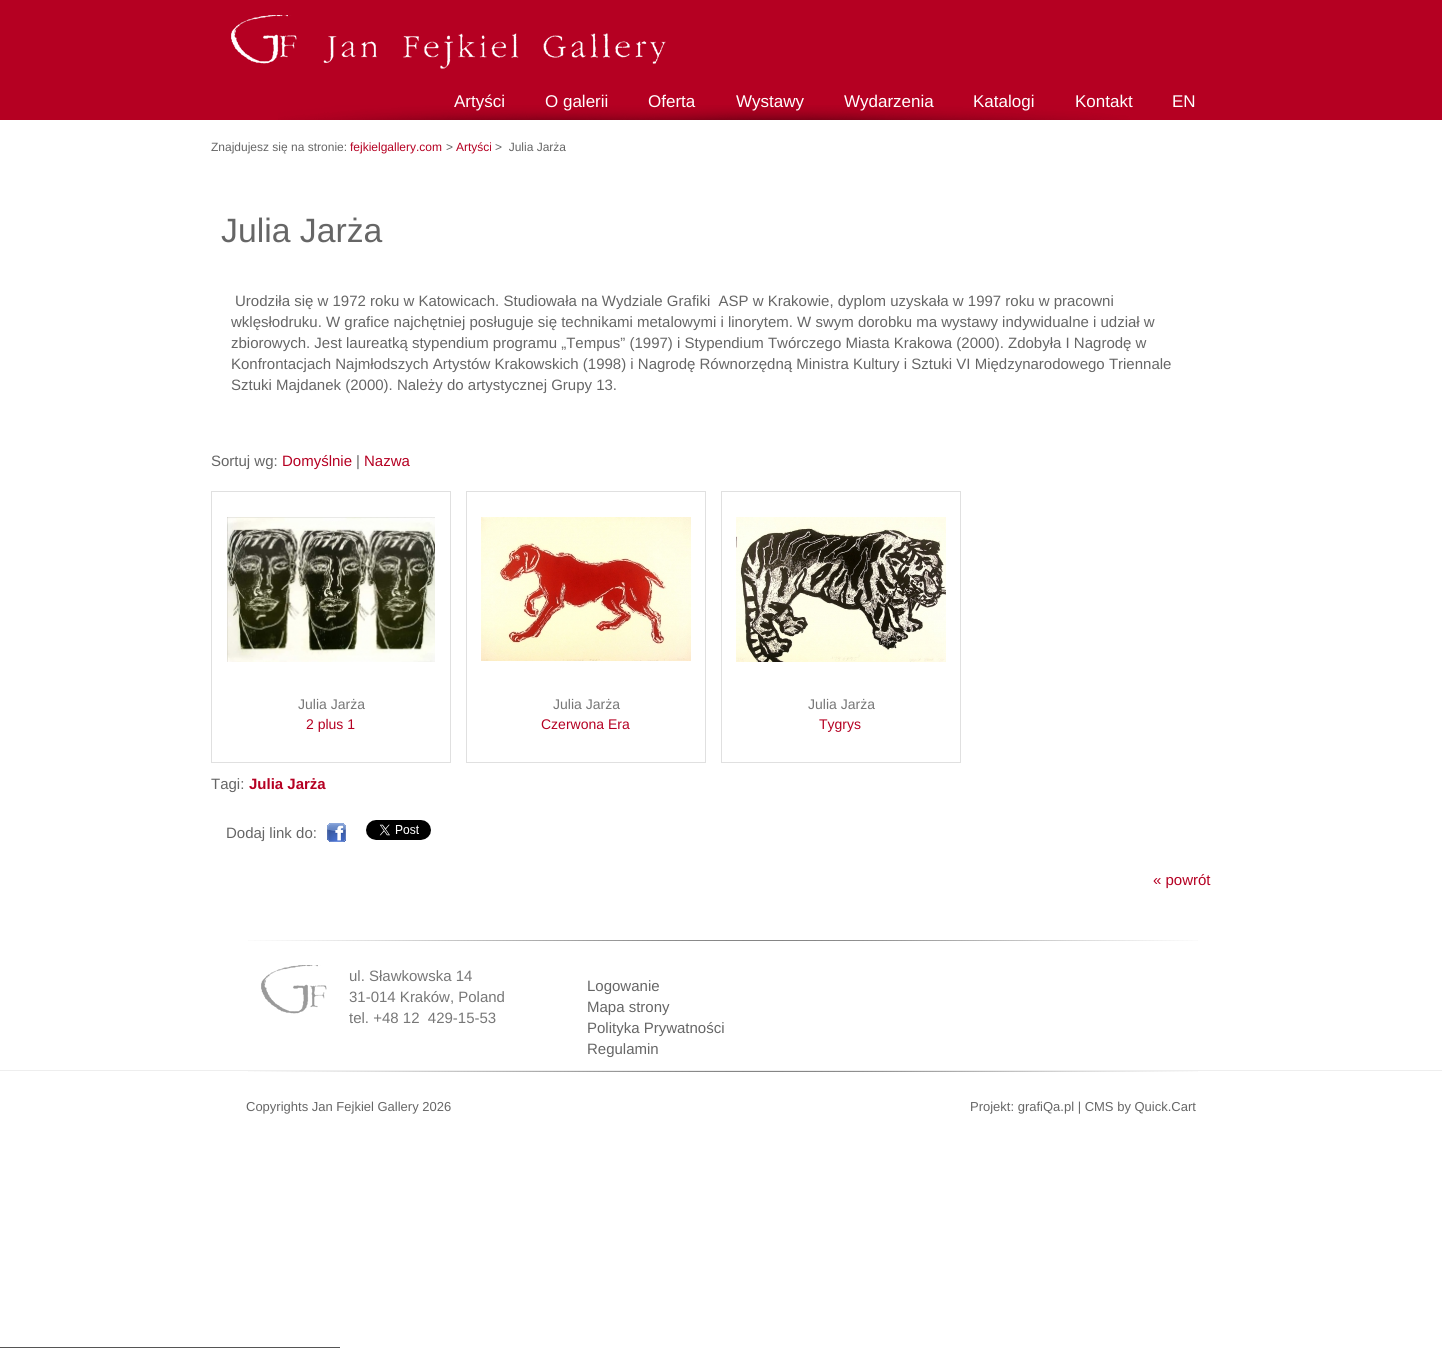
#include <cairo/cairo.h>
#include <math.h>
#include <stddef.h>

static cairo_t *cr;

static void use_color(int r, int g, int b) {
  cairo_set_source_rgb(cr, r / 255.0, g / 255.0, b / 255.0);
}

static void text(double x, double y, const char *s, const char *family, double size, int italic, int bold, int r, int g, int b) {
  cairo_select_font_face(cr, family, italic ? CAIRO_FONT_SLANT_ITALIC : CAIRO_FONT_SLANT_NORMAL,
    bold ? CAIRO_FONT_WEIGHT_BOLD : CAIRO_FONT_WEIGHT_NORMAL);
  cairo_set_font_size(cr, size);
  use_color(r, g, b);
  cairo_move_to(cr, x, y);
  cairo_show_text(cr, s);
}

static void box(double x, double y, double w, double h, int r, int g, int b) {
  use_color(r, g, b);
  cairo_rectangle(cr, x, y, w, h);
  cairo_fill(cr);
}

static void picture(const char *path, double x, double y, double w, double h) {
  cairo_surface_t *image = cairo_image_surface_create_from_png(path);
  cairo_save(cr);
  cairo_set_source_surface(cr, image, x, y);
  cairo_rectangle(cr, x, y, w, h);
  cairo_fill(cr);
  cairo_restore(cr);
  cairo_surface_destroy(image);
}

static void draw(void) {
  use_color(255, 255, 255);
  cairo_paint(cr);
  box(0, 0, 1442, 120, 181, 0, 34);
  picture("img_01.png", 278, 105, 852, 15);
  picture("img_02.png", 231, 15, 435, 54);
  cairo_rectangle(cr, 211.5, 491.5, 239, 271);
  use_color(224, 224, 224);
  cairo_set_line_width(cr, 1);
  cairo_stroke(cr);
  picture("img_03.png", 227, 517, 208, 145);
  cairo_rectangle(cr, 466.5, 491.5, 239, 271);
  cairo_stroke(cr);
  picture("img_04.png", 481, 517, 210, 144);
  cairo_rectangle(cr, 721.5, 491.5, 239, 271);
  cairo_stroke(cr);
  picture("img_05.png", 736, 517, 210, 145);
  picture("img_06.png", 327, 823, 19, 19);
  picture("img_07.png", 366, 820, 65, 20);
  box(0, 1070, 1442, 1, 238, 238, 238);
  picture("img_08.png", 248, 940, 950, 1);
  picture("img_09.png", 261, 965, 66, 49);
  picture("img_08.png", 248, 1071, 950, 1);
  box(0, 1347, 340, 1, 85, 85, 85);
  text(454, 107, "Artyści", "Liberation Sans", 17, 0, 0, 255, 255, 255);
  text(545, 107, "O galerii", "Liberation Sans", 17, 0, 0, 255, 255, 255);
  text(648, 107, "Oferta", "Liberation Sans", 17, 0, 0, 255, 255, 255);
  text(736, 107, "Wystawy", "Liberation Sans", 17, 0, 0, 255, 255, 255);
  text(844, 107, "Wydarzenia", "Liberation Sans", 17, 0, 0, 255, 255, 255);
  text(973, 107, "Katalogi", "Liberation Sans", 17, 0, 0, 255, 255, 255);
  text(1075, 107, "Kontakt", "Liberation Sans", 17, 0, 0, 255, 255, 255);
  text(1172, 107, "EN", "Liberation Sans", 17, 0, 0, 255, 255, 255);
  text(211, 151, "Znajdujesz się na stronie:", "Liberation Sans", 12, 0, 0, 102, 102, 102);
  text(350, 151, "fejkielgallery.com", "Liberation Sans", 12, 0, 0, 181, 0, 34);
  text(446, 151, ">", "Liberation Sans", 12, 0, 0, 102, 102, 102);
  text(456, 151, "Artyści", "Liberation Sans", 12, 0, 0, 181, 0, 34);
  text(495, 151, ">  Julia Jarża", "Liberation Sans", 12, 0, 0, 102, 102, 102);
  text(221, 242, "Julia Jarża", "Liberation Sans", 33.75, 0, 0, 102, 102, 102);
  text(235, 306, "Urodziła się w 1972 roku w Katowicach. Studiowała na Wydziale Grafiki  ASP w Krakowie, dyplom uzyskała w 1997 roku w pracowni", "Liberation Sans", 15, 0, 0, 102, 102, 102);
  text(231, 327, "wklęsłodruku. W grafice najchętniej posługuje się technikami metalowymi i linorytem. W swym dorobku ma wystawy indywidualne i udział w", "Liberation Sans", 15, 0, 0, 102, 102, 102);
  text(231, 348, "zbiorowych. Jest laureatką stypendium programu „Tempus” (1997) i Stypendium Twórczego Miasta Krakowa (2000). Zdobyła I Nagrodę w", "Liberation Sans", 15, 0, 0, 102, 102, 102);
  text(231, 369, "Konfrontacjach Najmłodszych Artystów Krakowskich (1998) i Nagrodę Równorzędną Ministra Kultury i Sztuki VI Międzynarodowego Triennale", "Liberation Sans", 15, 0, 0, 102, 102, 102);
  text(231, 390, "Sztuki Majdanek (2000). Należy do artystycznej Grupy 13.", "Liberation Sans", 15, 0, 0, 102, 102, 102);
  text(211, 466, "Sortuj wg:", "Liberation Sans", 15, 0, 0, 102, 102, 102);
  text(282, 466, "Domyślnie", "Liberation Sans", 15, 0, 0, 181, 0, 34);
  text(356, 466, "|", "Liberation Sans", 15, 0, 0, 102, 102, 102);
  text(364, 466, "Nazwa", "Liberation Sans", 15, 0, 0, 181, 0, 34);
  text(298, 709, "Julia Jarża", "Liberation Sans", 14, 0, 0, 119, 119, 119);
  text(306, 729, "2 plus 1", "Liberation Sans", 14, 0, 0, 181, 0, 34);
  text(553, 709, "Julia Jarża", "Liberation Sans", 14, 0, 0, 119, 119, 119);
  text(541, 729, "Czerwona Era", "Liberation Sans", 14, 0, 0, 181, 0, 34);
  text(808, 709, "Julia Jarża", "Liberation Sans", 14, 0, 0, 119, 119, 119);
  text(819, 729, "Tygrys", "Liberation Sans", 14, 0, 0, 181, 0, 34);
  text(211, 789, "Tagi:", "Liberation Sans", 15, 0, 0, 102, 102, 102);
  text(249, 789, "Julia Jarża", "Liberation Sans", 15, 0, 1, 181, 0, 34);
  text(226, 838, "Dodaj link do:", "Liberation Sans", 15, 0, 0, 102, 102, 102);
  text(1153, 885, "« powrót", "Liberation Sans", 15, 0, 0, 181, 0, 34);
  text(349, 981, "ul. Sławkowska 14", "Liberation Sans", 15, 0, 0, 119, 119, 119);
  text(349, 1002, "31-014 Kraków, Poland", "Liberation Sans", 15, 0, 0, 119, 119, 119);
  text(349, 1023, "tel. +48 12  429-15-53", "Liberation Sans", 15, 0, 0, 119, 119, 119);
  text(587, 991, "Logowanie", "Liberation Sans", 15, 0, 0, 102, 102, 102);
  text(587, 1012, "Mapa strony", "Liberation Sans", 15, 0, 0, 102, 102, 102);
  text(587, 1033, "Polityka Prywatności", "Liberation Sans", 15, 0, 0, 102, 102, 102);
  text(587, 1054, "Regulamin", "Liberation Sans", 15, 0, 0, 102, 102, 102);
  text(246, 1111, "Copyrights Jan Fejkiel Gallery 2026", "Liberation Sans", 13, 0, 0, 102, 102, 102);
  text(970, 1111, "Projekt: grafiQa.pl | CMS by Quick.Cart", "Liberation Sans", 13, 0, 0, 102, 102, 102);
}

int main(void) {
  cairo_surface_t *surface = cairo_image_surface_create(CAIRO_FORMAT_RGB24, 1442, 1358);
  cr = cairo_create(surface);
  cairo_font_options_t *options = cairo_font_options_create();
  cairo_font_options_set_hint_metrics(options, CAIRO_HINT_METRICS_OFF);
  cairo_font_options_set_hint_style(options, CAIRO_HINT_STYLE_NONE);
  cairo_set_font_options(cr, options);
  cairo_set_miter_limit(cr, 4);
  draw();
  cairo_surface_write_to_png(surface, "out.png");
  cairo_font_options_destroy(options);
  cairo_destroy(cr);
  cairo_surface_destroy(surface);
  return 0;
}
